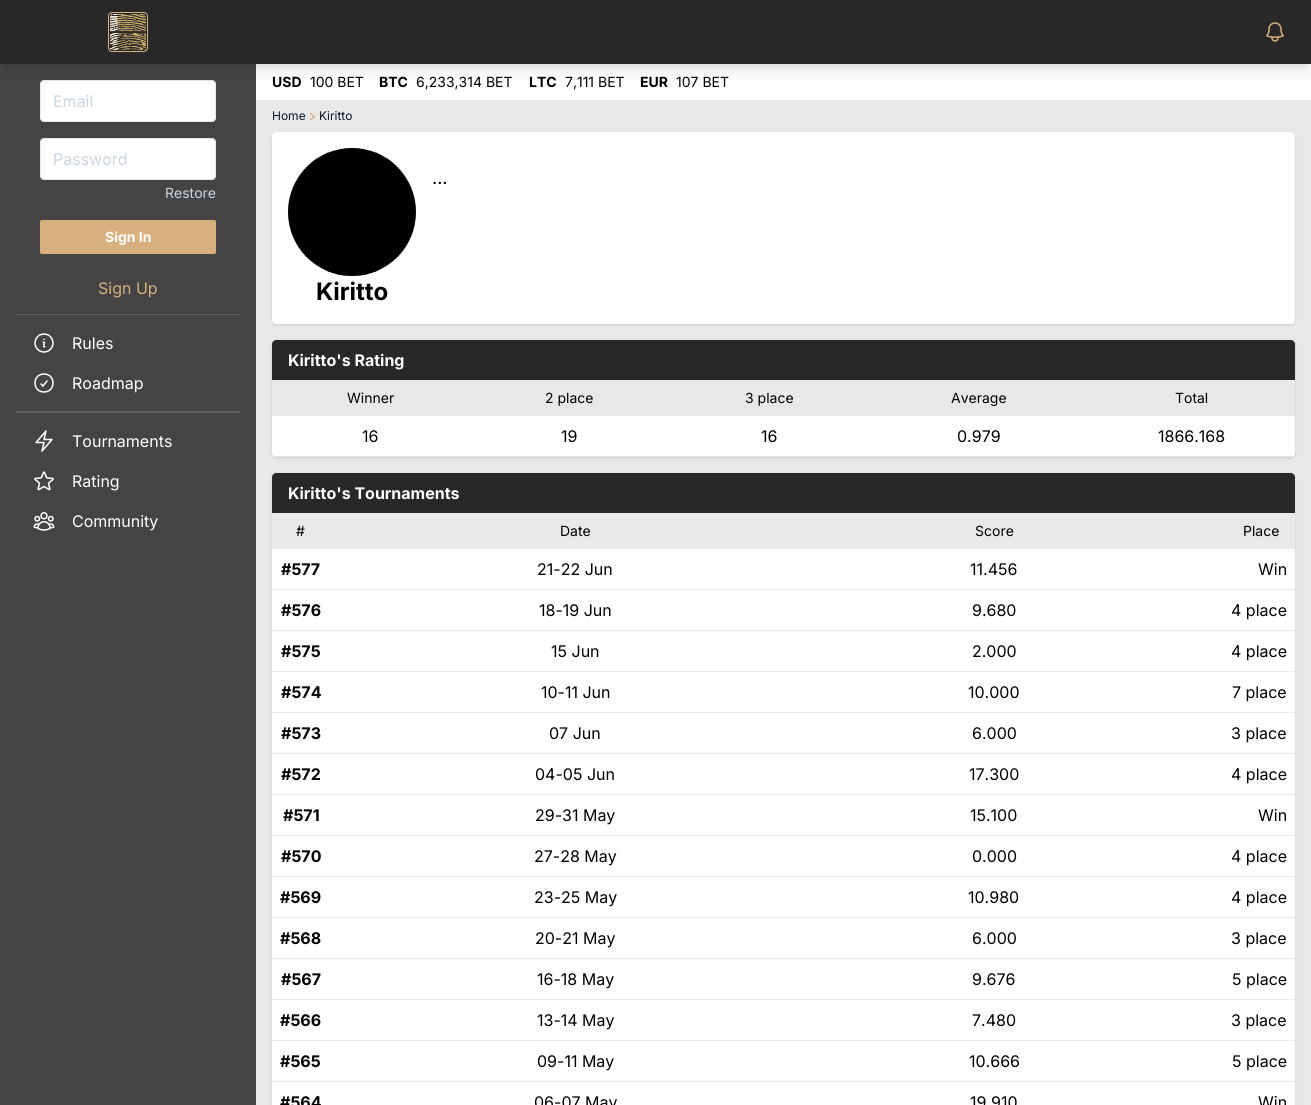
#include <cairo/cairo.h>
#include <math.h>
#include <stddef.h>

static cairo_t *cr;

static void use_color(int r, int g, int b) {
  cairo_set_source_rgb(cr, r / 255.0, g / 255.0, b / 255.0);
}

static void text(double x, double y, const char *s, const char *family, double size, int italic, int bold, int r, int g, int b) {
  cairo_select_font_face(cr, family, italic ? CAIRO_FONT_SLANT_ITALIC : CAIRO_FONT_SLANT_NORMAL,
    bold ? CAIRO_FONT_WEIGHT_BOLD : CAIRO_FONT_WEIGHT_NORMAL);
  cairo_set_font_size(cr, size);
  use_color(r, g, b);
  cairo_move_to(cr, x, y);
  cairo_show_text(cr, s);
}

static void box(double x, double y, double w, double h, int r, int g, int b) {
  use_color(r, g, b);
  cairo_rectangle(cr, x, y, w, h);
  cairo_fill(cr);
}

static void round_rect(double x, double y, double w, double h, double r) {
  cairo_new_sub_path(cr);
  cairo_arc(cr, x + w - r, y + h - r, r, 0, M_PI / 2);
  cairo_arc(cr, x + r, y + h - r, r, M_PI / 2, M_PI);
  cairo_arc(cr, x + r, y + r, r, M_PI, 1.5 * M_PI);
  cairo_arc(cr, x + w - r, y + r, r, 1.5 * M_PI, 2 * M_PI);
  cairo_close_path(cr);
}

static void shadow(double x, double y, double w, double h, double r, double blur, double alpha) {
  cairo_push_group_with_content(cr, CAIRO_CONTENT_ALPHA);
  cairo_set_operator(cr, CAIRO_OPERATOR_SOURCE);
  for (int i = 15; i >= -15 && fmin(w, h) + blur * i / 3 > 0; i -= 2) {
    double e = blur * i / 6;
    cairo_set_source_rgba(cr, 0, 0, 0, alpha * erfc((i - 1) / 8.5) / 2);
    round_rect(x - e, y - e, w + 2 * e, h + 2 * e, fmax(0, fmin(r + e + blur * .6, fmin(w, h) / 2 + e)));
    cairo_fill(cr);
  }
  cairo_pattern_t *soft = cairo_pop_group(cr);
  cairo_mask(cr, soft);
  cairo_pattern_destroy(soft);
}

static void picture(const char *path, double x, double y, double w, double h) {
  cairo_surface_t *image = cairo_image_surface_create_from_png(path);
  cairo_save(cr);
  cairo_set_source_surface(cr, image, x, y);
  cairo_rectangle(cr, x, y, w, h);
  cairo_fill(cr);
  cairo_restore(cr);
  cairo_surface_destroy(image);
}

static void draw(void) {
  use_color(232, 232, 232);
  cairo_paint(cr);
  box(256, 64, 1055, 36, 255, 255, 255);
  box(0, 64, 256, 1041, 68, 68, 68);
  use_color(0, 0, 0);
  shadow(4, 8, 1303, 56, 0, 3, 0.1);
  use_color(255, 255, 255);
  round_rect(40.5, 80.5, 175, 41, 3.5);
  cairo_fill_preserve(cr);
  use_color(232, 232, 232);
  cairo_set_line_width(cr, 1);
  cairo_stroke(cr);
  use_color(0, 0, 0);
  shadow(3, 13, 1305, 58, 0, 7.5, 0.1);
  box(0, 0, 1311, 64, 40, 40, 40);
  round_rect(108.5, 12.5, 39, 39, 3.5);
  use_color(215, 176, 125);
  cairo_stroke(cr);
  picture("img_01.png", 110, 14, 36, 36);
  picture("img_02.png", 1266, 22, 18, 20);
  use_color(255, 255, 255);
  round_rect(40.5, 138.5, 175, 41, 3.5);
  cairo_fill_preserve(cr);
  use_color(232, 232, 232);
  cairo_stroke(cr);
  use_color(215, 176, 125);
  round_rect(40.5, 220.5, 175, 33, 1.5);
  cairo_fill_preserve(cr);
  cairo_stroke(cr);
  box(16, 314, 224, 1, 94, 94, 94);
  picture("img_03.png", 34, 333, 20, 20);
  cairo_new_path(cr);
  cairo_move_to(cr, 41, 384);
  cairo_line_to(cr, 43, 386);
  cairo_line_to(cr, 47, 381);
  cairo_move_to(cr, 53, 383);
  cairo_curve_to(cr, 53, 395, 35, 395, 35, 383);
  cairo_curve_to(cr, 35, 371, 53, 371, 53, 383);
  cairo_close_path(cr);
  use_color(255, 255, 255);
  cairo_set_line_width(cr, 1.5);
  cairo_set_line_cap(cr, CAIRO_LINE_CAP_ROUND);
  cairo_set_line_join(cr, CAIRO_LINE_JOIN_ROUND);
  cairo_stroke(cr);
  box(16, 411, 224, 2, 94, 94, 94);
  cairo_new_path(cr);
  cairo_move_to(cr, 36, 442.5);
  cairo_line_to(cr, 46, 431);
  cairo_line_to(cr, 44, 439.5);
  cairo_line_to(cr, 52, 439.5);
  cairo_line_to(cr, 42, 451);
  cairo_line_to(cr, 44, 442.5);
  cairo_close_path(cr);
  use_color(255, 255, 255);
  cairo_stroke(cr);
  picture("img_04.png", 34, 471, 20, 20);
  picture("img_05.png", 33, 512, 22, 19);
  cairo_save(cr);
  cairo_rectangle(cr, 310, 113, 5, 7);
  cairo_clip(cr);
  cairo_new_path(cr);
  cairo_move_to(cr, 310.5, 113.5);
  cairo_line_to(cr, 314.5, 117);
  cairo_line_to(cr, 310.5, 119.5);
  use_color(215, 176, 125);
  cairo_set_line_width(cr, 1.4);
  cairo_set_line_join(cr, CAIRO_LINE_JOIN_MITER);
  cairo_stroke(cr);
  cairo_restore(cr);
  use_color(0, 0, 0);
  shadow(273, 134, 1021, 190, 3, 1, 0.1);
  shadow(272, 133, 1023, 192, 4, 1.5, 0.1);
  use_color(255, 255, 255);
  round_rect(272, 132, 1023, 192, 4);
  cairo_fill(cr);
  picture("img_06.png", 288, 148, 128, 128);
  use_color(0, 0, 0);
  shadow(273, 342, 1021, 115, 3, 1, 0.1);
  shadow(272, 341, 1023, 117, 4, 1.5, 0.1);
  use_color(255, 255, 255);
  round_rect(272, 340, 1023, 117, 4);
  cairo_fill(cr);
  use_color(40, 40, 40);
  cairo_new_path(cr);
  cairo_move_to(cr, 276, 340);
  cairo_line_to(cr, 1291, 340);
  cairo_curve_to(cr, 1293, 340, 1295, 342, 1295, 344);
  cairo_line_to(cr, 1295, 380);
  cairo_line_to(cr, 272, 380);
  cairo_line_to(cr, 272, 344);
  cairo_curve_to(cr, 272, 342, 274, 340, 276, 340);
  cairo_close_path(cr);
  cairo_fill(cr);
  box(272, 380, 1023, 36, 232, 232, 232);
  cairo_save(cr);
  round_rect(272, 340, 1023, 117, 4);
  cairo_clip(cr);
  box(272, 456, 1023, 1, 229, 231, 235);
  cairo_restore(cr);
  use_color(0, 0, 0);
  shadow(272, 474, 1023, 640, 4, 1.5, 0.1);
  use_color(255, 255, 255);
  round_rect(272, 473, 1023, 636, 4);
  cairo_fill(cr);
  use_color(40, 40, 40);
  cairo_new_path(cr);
  cairo_move_to(cr, 276, 473);
  cairo_line_to(cr, 1291, 473);
  cairo_curve_to(cr, 1293, 473, 1295, 475, 1295, 477);
  cairo_line_to(cr, 1295, 513);
  cairo_line_to(cr, 272, 513);
  cairo_line_to(cr, 272, 477);
  cairo_curve_to(cr, 272, 475, 274, 473, 276, 473);
  cairo_close_path(cr);
  cairo_fill(cr);
  box(272, 513, 1023, 36, 232, 232, 232);
  box(272, 589, 1023, 1, 232, 232, 232);
  box(272, 630, 1023, 1, 232, 232, 232);
  box(272, 671, 1023, 1, 232, 232, 232);
  box(272, 712, 1023, 1, 232, 232, 232);
  box(272, 753, 1023, 1, 232, 232, 232);
  box(272, 794, 1023, 1, 232, 232, 232);
  box(272, 835, 1023, 1, 232, 232, 232);
  box(272, 876, 1023, 1, 232, 232, 232);
  box(272, 917, 1023, 1, 232, 232, 232);
  box(272, 958, 1023, 1, 232, 232, 232);
  box(272, 999, 1023, 1, 232, 232, 232);
  box(272, 1040, 1023, 1, 232, 232, 232);
  box(272, 1081, 1023, 1, 232, 232, 232);
  text(272, 87, "USD", "Inter", 14, 0, 1, 0, 0, 0);
  text(310, 87, "100 BET", "Inter", 14, 0, 0, 0, 0, 0);
  text(379, 87, "BTC", "Inter", 14, 0, 1, 0, 0, 0);
  text(416, 87, "6,233,314 BET", "Inter", 14, 0, 0, 0, 0, 0);
  text(529, 87, "LTC", "Inter", 14, 0, 1, 0, 0, 0);
  text(565, 87, "7,111 BET", "Inter", 14, 0, 0, 0, 0, 0);
  text(640, 87, "EUR", "Inter", 14, 0, 1, 0, 0, 0);
  text(676, 87, "107 BET", "Inter", 14, 0, 0, 0, 0, 0);
  text(53, 107, "Email", "Inter", 16, 0, 0, 203, 213, 224);
  text(53, 165, "Password", "Inter", 16, 0, 0, 203, 213, 224);
  text(165, 198, "Restore", "Inter", 14, 0, 0, 203, 213, 224);
  text(105, 242, "Sign In", "Inter", 14, 0, 1, 255, 255, 255);
  text(98, 294, "Sign Up", "Inter", 16, 0, 0, 215, 176, 125);
  text(72, 349, "Rules", "Inter", 16, 0, 0, 255, 255, 255);
  text(72, 389, "Roadmap", "Inter", 16, 0, 0, 255, 255, 255);
  text(72, 447, "Tournaments", "Inter", 16, 0, 0, 255, 255, 255);
  text(72, 487, "Rating", "Inter", 16, 0, 0, 255, 255, 255);
  text(72, 527, "Community", "Inter", 16, 0, 0, 255, 255, 255);
  text(272, 120, "Home", "Inter", 12, 0, 0, 17, 24, 39);
  text(319, 120, "Kiritto", "Inter", 12, 0, 0, 17, 24, 39);
  text(432, 184, "...", "Inter", 18, 0, 0, 0, 0, 0);
  text(316, 300, "Kiritto", "Inter", 24, 0, 1, 0, 0, 0);
  text(288, 366, "Kiritto's Rating", "Inter", 16, 0, 1, 255, 255, 255);
  text(347, 403, "Winner", "Inter", 14, 0, 0, 0, 0, 0);
  text(545, 403, "2 place", "Inter", 14, 0, 0, 0, 0, 0);
  text(745, 403, "3 place", "Inter", 14, 0, 0, 0, 0, 0);
  text(951, 403, "Average", "Inter", 14, 0, 0, 0, 0, 0);
  text(1175, 403, "Total", "Inter", 14, 0, 0, 0, 0, 0);
  text(362, 442, "16", "Inter", 16, 0, 0, 0, 0, 0);
  text(561, 442, "19", "Inter", 16, 0, 0, 0, 0, 0);
  text(761, 442, "16", "Inter", 16, 0, 0, 0, 0, 0);
  text(957, 442, "0.979", "Inter", 16, 0, 0, 0, 0, 0);
  text(1158, 442, "1866.168", "Inter", 16, 0, 0, 0, 0, 0);
  text(288, 499, "Kiritto's Tournaments", "Inter", 16, 0, 1, 255, 255, 255);
  text(296, 536, "#", "Inter", 14, 0, 0, 0, 0, 0);
  text(560, 536, "Date", "Inter", 14, 0, 0, 0, 0, 0);
  text(975, 536, "Score", "Inter", 14, 0, 0, 0, 0, 0);
  text(1243, 536, "Place", "Inter", 14, 0, 0, 0, 0, 0);
  text(281, 575, "#577", "Inter", 16, 0, 1, 0, 0, 0);
  text(537, 575, "21-22 Jun", "Inter", 16, 0, 0, 0, 0, 0);
  text(970, 575, "11.456", "Inter", 16, 0, 0, 0, 0, 0);
  text(1258, 575, "Win", "Inter", 16, 0, 0, 0, 0, 0);
  text(281, 616, "#576", "Inter", 16, 0, 1, 0, 0, 0);
  text(539, 616, "18-19 Jun", "Inter", 16, 0, 0, 0, 0, 0);
  text(972, 616, "9.680", "Inter", 16, 0, 0, 0, 0, 0);
  text(1231, 616, "4 place", "Inter", 16, 0, 0, 0, 0, 0);
  text(281, 657, "#575", "Inter", 16, 0, 1, 0, 0, 0);
  text(551, 657, "15 Jun", "Inter", 16, 0, 0, 0, 0, 0);
  text(972, 657, "2.000", "Inter", 16, 0, 0, 0, 0, 0);
  text(1231, 657, "4 place", "Inter", 16, 0, 0, 0, 0, 0);
  text(281, 698, "#574", "Inter", 16, 0, 1, 0, 0, 0);
  text(541, 698, "10-11 Jun", "Inter", 16, 0, 0, 0, 0, 0);
  text(968, 698, "10.000", "Inter", 16, 0, 0, 0, 0, 0);
  text(1232, 698, "7 place", "Inter", 16, 0, 0, 0, 0, 0);
  text(281, 739, "#573", "Inter", 16, 0, 1, 0, 0, 0);
  text(549, 739, "07 Jun", "Inter", 16, 0, 0, 0, 0, 0);
  text(972, 739, "6.000", "Inter", 16, 0, 0, 0, 0, 0);
  text(1231, 739, "3 place", "Inter", 16, 0, 0, 0, 0, 0);
  text(281, 780, "#572", "Inter", 16, 0, 1, 0, 0, 0);
  text(535, 780, "04-05 Jun", "Inter", 16, 0, 0, 0, 0, 0);
  text(969, 780, "17.300", "Inter", 16, 0, 0, 0, 0, 0);
  text(1231, 780, "4 place", "Inter", 16, 0, 0, 0, 0, 0);
  text(283, 821, "#571", "Inter", 16, 0, 1, 0, 0, 0);
  text(535, 821, "29-31 May", "Inter", 16, 0, 0, 0, 0, 0);
  text(970, 821, "15.100", "Inter", 16, 0, 0, 0, 0, 0);
  text(1258, 821, "Win", "Inter", 16, 0, 0, 0, 0, 0);
  text(281, 862, "#570", "Inter", 16, 0, 1, 0, 0, 0);
  text(534, 862, "27-28 May", "Inter", 16, 0, 0, 0, 0, 0);
  text(972, 862, "0.000", "Inter", 16, 0, 0, 0, 0, 0);
  text(1231, 862, "4 place", "Inter", 16, 0, 0, 0, 0, 0);
  text(280, 903, "#569", "Inter", 16, 0, 1, 0, 0, 0);
  text(534, 903, "23-25 May", "Inter", 16, 0, 0, 0, 0, 0);
  text(968, 903, "10.980", "Inter", 16, 0, 0, 0, 0, 0);
  text(1231, 903, "4 place", "Inter", 16, 0, 0, 0, 0, 0);
  text(280, 944, "#568", "Inter", 16, 0, 1, 0, 0, 0);
  text(535, 944, "20-21 May", "Inter", 16, 0, 0, 0, 0, 0);
  text(972, 944, "6.000", "Inter", 16, 0, 0, 0, 0, 0);
  text(1231, 944, "3 place", "Inter", 16, 0, 0, 0, 0, 0);
  text(281, 985, "#567", "Inter", 16, 0, 1, 0, 0, 0);
  text(537, 985, "16-18 May", "Inter", 16, 0, 0, 0, 0, 0);
  text(972, 985, "9.676", "Inter", 16, 0, 0, 0, 0, 0);
  text(1232, 985, "5 place", "Inter", 16, 0, 0, 0, 0, 0);
  text(280, 1026, "#566", "Inter", 16, 0, 1, 0, 0, 0);
  text(537, 1026, "13-14 May", "Inter", 16, 0, 0, 0, 0, 0);
  text(972, 1026, "7.480", "Inter", 16, 0, 0, 0, 0, 0);
  text(1231, 1026, "3 place", "Inter", 16, 0, 0, 0, 0, 0);
  text(280, 1067, "#565", "Inter", 16, 0, 1, 0, 0, 0);
  text(537, 1067, "09-11 May", "Inter", 16, 0, 0, 0, 0, 0);
  text(969, 1067, "10.666", "Inter", 16, 0, 0, 0, 0, 0);
  text(1232, 1067, "5 place", "Inter", 16, 0, 0, 0, 0, 0);
  text(280, 1108, "#564", "Inter", 16, 0, 1, 0, 0, 0);
  text(534, 1108, "06-07 May", "Inter", 16, 0, 0, 0, 0, 0);
  text(970, 1108, "19.910", "Inter", 16, 0, 0, 0, 0, 0);
  text(1258, 1108, "Win", "Inter", 16, 0, 0, 0, 0, 0);
}

int main(void) {
  cairo_surface_t *surface = cairo_image_surface_create(CAIRO_FORMAT_RGB24, 1311, 1105);
  cr = cairo_create(surface);
  cairo_font_options_t *options = cairo_font_options_create();
  cairo_font_options_set_hint_metrics(options, CAIRO_HINT_METRICS_OFF);
  cairo_font_options_set_hint_style(options, CAIRO_HINT_STYLE_NONE);
  cairo_set_font_options(cr, options);
  cairo_set_miter_limit(cr, 4);
  draw();
  cairo_surface_write_to_png(surface, "out.png");
  cairo_font_options_destroy(options);
  cairo_destroy(cr);
  cairo_surface_destroy(surface);
  return 0;
}
